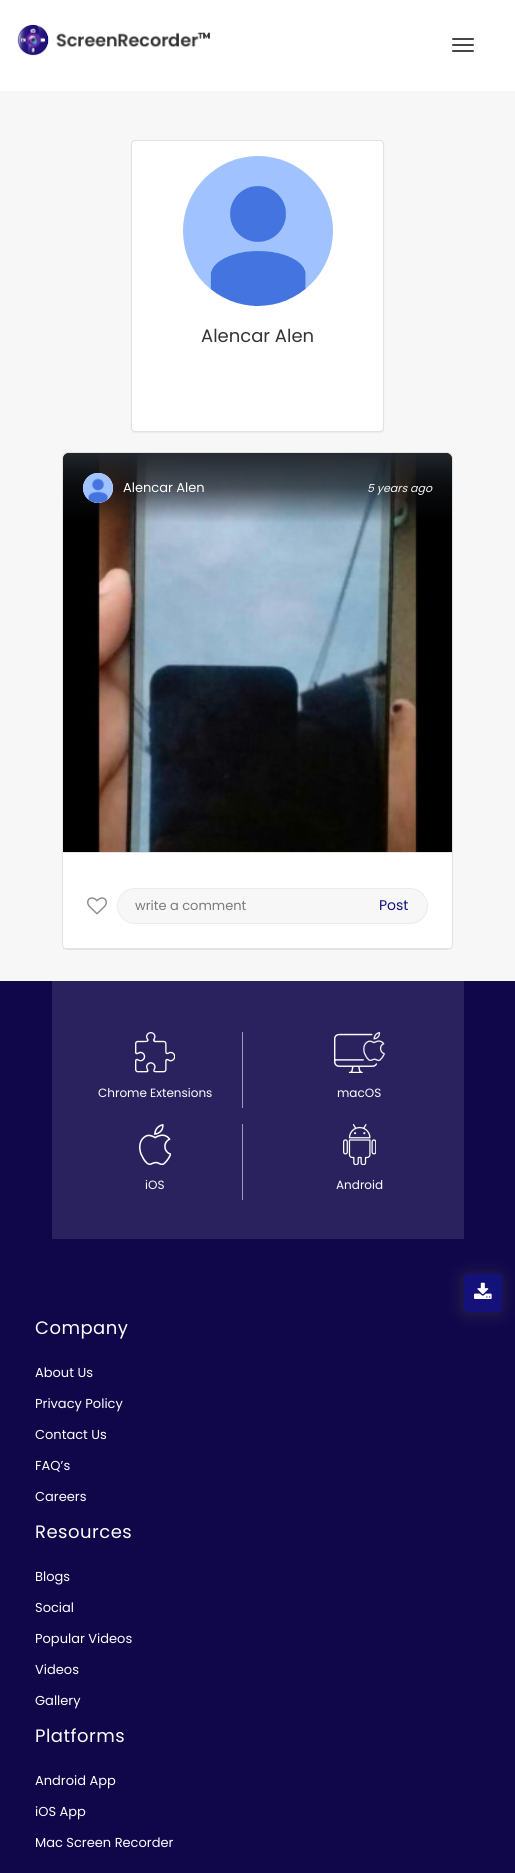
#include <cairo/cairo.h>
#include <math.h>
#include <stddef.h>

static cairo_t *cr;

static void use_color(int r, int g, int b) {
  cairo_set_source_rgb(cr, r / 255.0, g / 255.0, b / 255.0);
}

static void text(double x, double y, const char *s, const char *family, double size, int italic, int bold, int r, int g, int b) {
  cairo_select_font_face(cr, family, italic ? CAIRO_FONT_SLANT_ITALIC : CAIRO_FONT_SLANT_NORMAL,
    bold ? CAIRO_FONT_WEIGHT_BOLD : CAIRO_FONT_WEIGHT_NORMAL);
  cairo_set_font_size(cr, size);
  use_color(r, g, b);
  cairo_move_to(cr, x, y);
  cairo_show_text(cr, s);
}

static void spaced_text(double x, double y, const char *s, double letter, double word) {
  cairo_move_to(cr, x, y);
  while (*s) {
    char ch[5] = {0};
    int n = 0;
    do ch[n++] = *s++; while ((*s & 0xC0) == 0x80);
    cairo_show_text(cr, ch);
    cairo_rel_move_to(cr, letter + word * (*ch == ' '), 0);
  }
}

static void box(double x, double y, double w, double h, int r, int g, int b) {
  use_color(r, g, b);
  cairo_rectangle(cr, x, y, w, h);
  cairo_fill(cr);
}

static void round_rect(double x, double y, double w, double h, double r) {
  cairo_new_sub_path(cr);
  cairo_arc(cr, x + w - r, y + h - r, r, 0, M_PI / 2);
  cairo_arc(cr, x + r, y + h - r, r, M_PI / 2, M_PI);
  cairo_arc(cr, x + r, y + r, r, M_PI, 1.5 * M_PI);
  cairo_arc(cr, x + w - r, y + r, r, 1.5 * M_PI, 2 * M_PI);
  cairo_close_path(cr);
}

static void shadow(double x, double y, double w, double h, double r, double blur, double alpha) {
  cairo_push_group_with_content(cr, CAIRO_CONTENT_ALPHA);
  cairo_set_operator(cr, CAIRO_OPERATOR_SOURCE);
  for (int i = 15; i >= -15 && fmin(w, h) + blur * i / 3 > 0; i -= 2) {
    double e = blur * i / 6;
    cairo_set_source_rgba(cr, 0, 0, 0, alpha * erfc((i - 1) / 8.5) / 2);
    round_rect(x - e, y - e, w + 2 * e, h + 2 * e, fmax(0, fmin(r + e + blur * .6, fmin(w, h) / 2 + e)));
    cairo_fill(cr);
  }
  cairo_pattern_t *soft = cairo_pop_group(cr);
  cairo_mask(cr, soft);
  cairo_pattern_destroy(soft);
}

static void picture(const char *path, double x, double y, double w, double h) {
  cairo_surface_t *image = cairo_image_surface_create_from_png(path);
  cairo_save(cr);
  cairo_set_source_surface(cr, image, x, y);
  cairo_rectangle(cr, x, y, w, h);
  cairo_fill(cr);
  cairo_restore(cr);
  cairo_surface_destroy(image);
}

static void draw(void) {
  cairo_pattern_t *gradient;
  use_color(247, 247, 247);
  cairo_paint(cr);
  box(0, 0, 515, 91, 255, 255, 255);
  picture("img_01.png", 17, 24, 193, 32);
  use_color(70, 67, 74);
  round_rect(452, 38, 22, 2, 1);
  cairo_fill(cr);
  round_rect(452, 44, 22, 2, 1);
  cairo_fill(cr);
  round_rect(452, 50, 22, 2, 1);
  cairo_fill(cr);
  use_color(0, 0, 0);
  shadow(131, 141, 253, 292, 4, 0.5, 0.05);
  use_color(255, 255, 255);
  round_rect(131.5, 140.5, 252, 291, 3.5);
  cairo_fill_preserve(cr);
  use_color(226, 226, 226);
  cairo_set_line_width(cr, 1);
  cairo_stroke(cr);
  picture("img_02.png", 183, 156, 150, 150);
  use_color(255, 255, 255);
  round_rect(62.5, 452.5, 390, 497, 5.5);
  cairo_fill_preserve(cr);
  use_color(226, 226, 226);
  cairo_stroke(cr);
  picture("img_03.png", 63, 453, 389, 399);
  gradient = cairo_pattern_create_linear(258, 453, 258, 523);
  cairo_pattern_add_color_stop_rgba(gradient, 0, 0.137, 0.153, 0.18, 0.97);
  cairo_pattern_add_color_stop_rgba(gradient, 0.5, 0.059, 0.067, 0.078, 0.64);
  cairo_pattern_add_color_stop_rgba(gradient, 0.75, 0.059, 0.067, 0.078, 0.33);
  cairo_pattern_add_color_stop_rgba(gradient, 1, 0.059, 0.067, 0.078, 0);
  cairo_set_source(cr, gradient);
  cairo_pattern_destroy(gradient);
  cairo_new_path(cr);
  cairo_move_to(cr, 69, 453);
  cairo_line_to(cr, 446, 453);
  cairo_curve_to(cr, 449.5, 453, 452, 455.5, 452, 459);
  cairo_line_to(cr, 452, 523);
  cairo_line_to(cr, 63, 523);
  cairo_line_to(cr, 63, 459);
  cairo_curve_to(cr, 63, 455.5, 65.5, 453, 69, 453);
  cairo_close_path(cr);
  cairo_fill(cr);
  use_color(255, 255, 255);
  cairo_arc(cr, 98, 488, 15, 0, 2 * M_PI);
  cairo_fill(cr);
  picture("img_04.png", 83, 473, 30, 30);
  box(63, 852, 389, 1, 230, 230, 230);
  box(63, 948, 389, 1, 229, 229, 229);
  picture("img_05.png", 87, 897, 20, 18);
  use_color(247, 247, 247);
  round_rect(117.5, 888.5, 310, 35, 17.5);
  cairo_fill_preserve(cr);
  use_color(235, 235, 235);
  cairo_stroke(cr);
  box(0, 981, 515, 892, 16, 7, 74);
  box(52, 981, 412, 258, 42, 34, 94);
  box(242, 1032, 1, 76, 159, 156, 183);
  picture("img_06.png", 135, 1032, 40, 41);
  picture("img_07.png", 334, 1032, 51, 41);
  box(242, 1124, 1, 76, 159, 156, 183);
  picture("img_08.png", 139, 1124, 32, 41);
  picture("img_09.png", 343, 1124, 33, 41);
  use_color(76, 76, 76);
  shadow(460, 1272, 44, 44, 7, 7, 0.31);
  use_color(20, 17, 123);
  round_rect(464, 1274, 38, 38, 4);
  cairo_fill(cr);
  picture("img_10.png", 474, 1282, 18, 17);
  text(201, 342, "Alencar Alen", "Poppins", 18, 0, 0, 51, 51, 51);
  text(123, 492, "Alencar Alen", "Poppins", 13, 0, 0, 255, 255, 255);
  text(367, 492, "5 years ago", "Poppins", 11, 1, 0, 246, 246, 246);
  text(135, 910, "write a comment", "Poppins", 13, 0, 0, 122, 122, 122);
  text(379, 910, "Post", "Poppins", 14, 0, 0, 20, 17, 123);
  text(98, 1097, "Chrome Extensions", "Poppins", 12, 0, 0, 255, 255, 255);
  text(337, 1097, "macOS", "Poppins", 12, 0, 0, 255, 255, 255);
  text(145, 1189, "iOS", "Poppins", 12, 0, 0, 255, 255, 255);
  text(336, 1189, "Android", "Poppins", 12, 0, 0, 255, 255, 255);
  cairo_set_font_size(cr, 18);
  spaced_text(35, 1334, "Company", 0.5, 0);
  text(35, 1377, "About Us", "Poppins", 13, 0, 0, 255, 255, 255);
  text(35, 1408, "Privacy Policy", "Poppins", 13, 0, 0, 255, 255, 255);
  text(35, 1439, "Contact Us", "Poppins", 13, 0, 0, 255, 255, 255);
  text(35, 1470, "FAQ’s", "Poppins", 13, 0, 0, 255, 255, 255);
  text(35, 1501, "Careers", "Poppins", 13, 0, 0, 255, 255, 255);
  cairo_set_font_size(cr, 18);
  spaced_text(35, 1538, "Resources", 0.5, 0);
  text(35, 1581, "Blogs", "Poppins", 13, 0, 0, 255, 255, 255);
  text(35, 1612, "Social", "Poppins", 13, 0, 0, 255, 255, 255);
  text(35, 1643, "Popular Videos", "Poppins", 13, 0, 0, 255, 255, 255);
  text(35, 1674, "Videos", "Poppins", 13, 0, 0, 255, 255, 255);
  text(35, 1705, "Gallery", "Poppins", 13, 0, 0, 255, 255, 255);
  cairo_set_font_size(cr, 18);
  spaced_text(35, 1742, "Platforms", 0.5, 0);
  text(35, 1785, "Android App", "Poppins", 13, 0, 0, 255, 255, 255);
  text(35, 1816, "iOS App", "Poppins", 13, 0, 0, 255, 255, 255);
  text(35, 1847, "Mac Screen Recorder", "Poppins", 13, 0, 0, 255, 255, 255);
}

int main(void) {
  cairo_surface_t *surface = cairo_image_surface_create(CAIRO_FORMAT_RGB24, 515, 1873);
  cr = cairo_create(surface);
  cairo_font_options_t *options = cairo_font_options_create();
  cairo_font_options_set_hint_metrics(options, CAIRO_HINT_METRICS_OFF);
  cairo_font_options_set_hint_style(options, CAIRO_HINT_STYLE_NONE);
  cairo_set_font_options(cr, options);
  cairo_set_miter_limit(cr, 4);
  draw();
  cairo_surface_write_to_png(surface, "out.png");
  cairo_font_options_destroy(options);
  cairo_destroy(cr);
  cairo_surface_destroy(surface);
  return 0;
}
